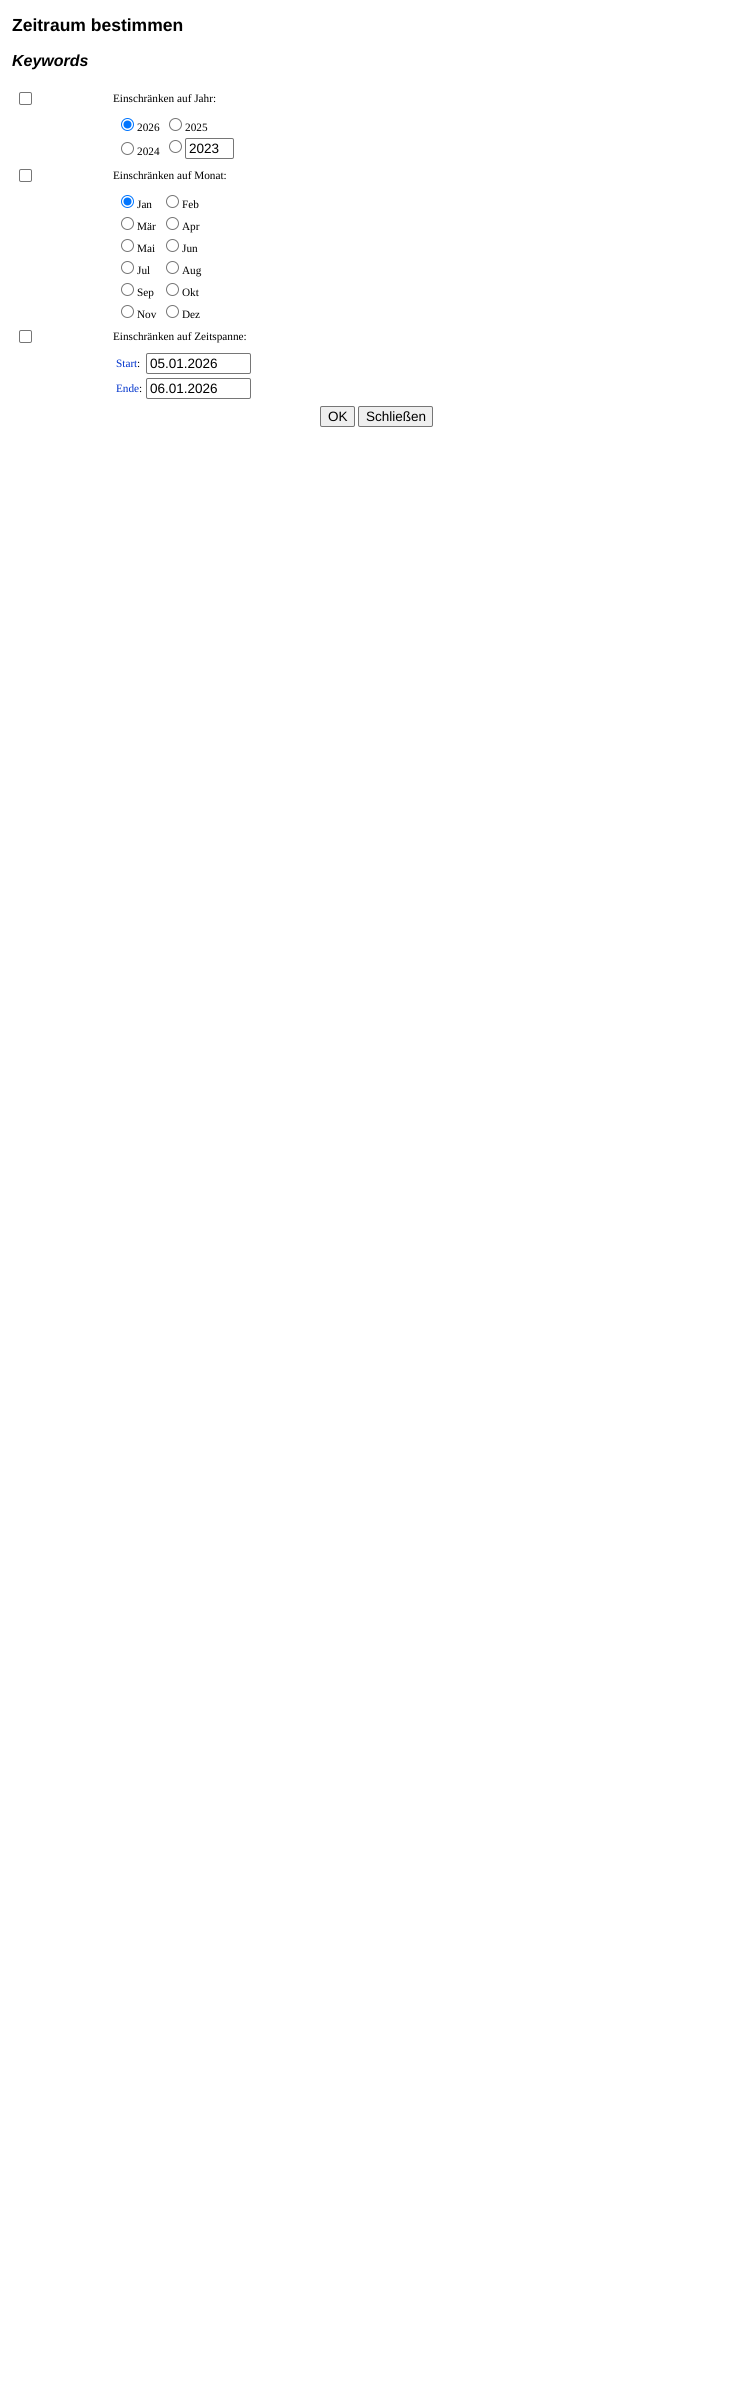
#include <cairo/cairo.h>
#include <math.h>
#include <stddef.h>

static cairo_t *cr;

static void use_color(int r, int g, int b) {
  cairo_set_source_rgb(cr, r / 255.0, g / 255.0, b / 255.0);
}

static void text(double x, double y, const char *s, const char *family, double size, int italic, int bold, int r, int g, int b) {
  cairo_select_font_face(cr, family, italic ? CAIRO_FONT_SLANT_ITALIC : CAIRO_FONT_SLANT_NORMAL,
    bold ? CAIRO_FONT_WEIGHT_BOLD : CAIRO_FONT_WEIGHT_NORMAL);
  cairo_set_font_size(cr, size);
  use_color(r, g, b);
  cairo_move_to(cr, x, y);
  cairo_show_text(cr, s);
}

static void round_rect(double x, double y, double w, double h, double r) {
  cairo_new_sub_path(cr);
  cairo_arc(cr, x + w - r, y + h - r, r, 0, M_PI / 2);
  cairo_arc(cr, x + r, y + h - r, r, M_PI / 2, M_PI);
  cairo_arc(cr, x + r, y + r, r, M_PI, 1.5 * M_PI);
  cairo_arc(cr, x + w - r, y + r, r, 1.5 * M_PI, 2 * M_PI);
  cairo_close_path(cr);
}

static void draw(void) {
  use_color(255, 255, 255);
  cairo_paint(cr);
  round_rect(19.5, 92.5, 12, 12, 1.5);
  use_color(118, 118, 118);
  cairo_set_line_width(cr, 1);
  cairo_stroke(cr);
  cairo_arc(cr, 127.5, 124.5, 6, 0, 2 * M_PI);
  use_color(0, 117, 255);
  cairo_stroke(cr);
  cairo_arc(cr, 127.5, 124.5, 4, 0, 2 * M_PI);
  cairo_fill(cr);
  cairo_arc(cr, 175.5, 124.5, 6, 0, 2 * M_PI);
  use_color(118, 118, 118);
  cairo_stroke(cr);
  cairo_arc(cr, 127.5, 148.5, 6, 0, 2 * M_PI);
  cairo_stroke(cr);
  cairo_arc(cr, 175.5, 146.5, 6, 0, 2 * M_PI);
  cairo_stroke(cr);
  round_rect(185.5, 138.5, 48, 20, 1.5);
  cairo_stroke(cr);
  round_rect(19.5, 169.5, 12, 12, 1.5);
  cairo_stroke(cr);
  cairo_arc(cr, 127.5, 201.5, 6, 0, 2 * M_PI);
  use_color(0, 117, 255);
  cairo_stroke(cr);
  cairo_arc(cr, 127.5, 201.5, 4, 0, 2 * M_PI);
  cairo_fill(cr);
  cairo_arc(cr, 172.5, 201.5, 6, 0, 2 * M_PI);
  use_color(118, 118, 118);
  cairo_stroke(cr);
  cairo_arc(cr, 127.5, 223.5, 6, 0, 2 * M_PI);
  cairo_stroke(cr);
  cairo_arc(cr, 172.5, 223.5, 6, 0, 2 * M_PI);
  cairo_stroke(cr);
  cairo_arc(cr, 127.5, 245.5, 6, 0, 2 * M_PI);
  cairo_stroke(cr);
  cairo_arc(cr, 172.5, 245.5, 6, 0, 2 * M_PI);
  cairo_stroke(cr);
  cairo_arc(cr, 127.5, 267.5, 6, 0, 2 * M_PI);
  cairo_stroke(cr);
  cairo_arc(cr, 172.5, 267.5, 6, 0, 2 * M_PI);
  cairo_stroke(cr);
  cairo_arc(cr, 127.5, 289.5, 6, 0, 2 * M_PI);
  cairo_stroke(cr);
  cairo_arc(cr, 172.5, 289.5, 6, 0, 2 * M_PI);
  cairo_stroke(cr);
  cairo_arc(cr, 127.5, 311.5, 6, 0, 2 * M_PI);
  cairo_stroke(cr);
  cairo_arc(cr, 172.5, 311.5, 6, 0, 2 * M_PI);
  cairo_stroke(cr);
  round_rect(19.5, 330.5, 12, 12, 1.5);
  cairo_stroke(cr);
  round_rect(146.5, 353.5, 104, 20, 1.5);
  cairo_stroke(cr);
  round_rect(146.5, 378.5, 104, 20, 1.5);
  cairo_stroke(cr);
  use_color(239, 239, 239);
  round_rect(320.5, 406.5, 34, 20, 1.5);
  cairo_fill_preserve(cr);
  use_color(118, 118, 118);
  cairo_stroke(cr);
  use_color(239, 239, 239);
  round_rect(358.5, 406.5, 74, 20, 1.5);
  cairo_fill_preserve(cr);
  use_color(118, 118, 118);
  cairo_stroke(cr);
  text(12, 31, "Zeitraum bestimmen", "Liberation Sans", 17.5, 0, 1, 0, 0, 0);
  text(12, 66, "Keywords", "Liberation Sans", 16, 1, 1, 0, 0, 0);
  text(113, 102, "Einschränken auf Jahr:", "Liberation Serif", 11.25, 0, 0, 0, 0, 0);
  text(137, 131, "2026", "Liberation Serif", 11.25, 0, 0, 0, 0, 0);
  text(185, 131, "2025", "Liberation Serif", 11.25, 0, 0, 0, 0, 0);
  text(137, 155, "2024", "Liberation Serif", 11.25, 0, 0, 0, 0, 0);
  text(189, 153, "2023", "Liberation Sans", 13.5, 0, 0, 0, 0, 0);
  text(113, 179, "Einschränken auf Monat:", "Liberation Serif", 11.25, 0, 0, 0, 0, 0);
  text(137, 208, "Jan", "Liberation Serif", 11.25, 0, 0, 0, 0, 0);
  text(182, 208, "Feb", "Liberation Serif", 11.25, 0, 0, 0, 0, 0);
  text(137, 230, "Mär", "Liberation Serif", 11.25, 0, 0, 0, 0, 0);
  text(182, 230, "Apr", "Liberation Serif", 11.25, 0, 0, 0, 0, 0);
  text(137, 252, "Mai", "Liberation Serif", 11.25, 0, 0, 0, 0, 0);
  text(182, 252, "Jun", "Liberation Serif", 11.25, 0, 0, 0, 0, 0);
  text(137, 274, "Jul", "Liberation Serif", 11.25, 0, 0, 0, 0, 0);
  text(182, 274, "Aug", "Liberation Serif", 11.25, 0, 0, 0, 0, 0);
  text(137, 296, "Sep", "Liberation Serif", 11.25, 0, 0, 0, 0, 0);
  text(182, 296, "Okt", "Liberation Serif", 11.25, 0, 0, 0, 0, 0);
  text(137, 318, "Nov", "Liberation Serif", 11.25, 0, 0, 0, 0, 0);
  text(182, 318, "Dez", "Liberation Serif", 11.25, 0, 0, 0, 0, 0);
  text(113, 340, "Einschränken auf Zeitspanne:", "Liberation Serif", 11.25, 0, 0, 0, 0, 0);
  text(116, 367, "Start", "Liberation Serif", 11.25, 0, 0, 0, 51, 204);
  text(137, 367, ":", "Liberation Serif", 11.25, 0, 0, 0, 0, 0);
  text(150, 368, "05.01.2026", "Liberation Sans", 13.5, 0, 0, 0, 0, 0);
  text(116, 392, "Ende", "Liberation Serif", 11.25, 0, 0, 0, 51, 204);
  text(139, 392, ":", "Liberation Serif", 11.25, 0, 0, 0, 0, 0);
  text(150, 393, "06.01.2026", "Liberation Sans", 13.5, 0, 0, 0, 0, 0);
  text(328, 421, "OK", "Liberation Sans", 13.5, 0, 0, 0, 0, 0);
  text(366, 421, "Schließen", "Liberation Sans", 13.5, 0, 0, 0, 0, 0);
}

int main(void) {
  cairo_surface_t *surface = cairo_image_surface_create(CAIRO_FORMAT_RGB24, 749, 2393);
  cr = cairo_create(surface);
  cairo_font_options_t *options = cairo_font_options_create();
  cairo_font_options_set_hint_metrics(options, CAIRO_HINT_METRICS_OFF);
  cairo_font_options_set_hint_style(options, CAIRO_HINT_STYLE_NONE);
  cairo_set_font_options(cr, options);
  cairo_set_miter_limit(cr, 4);
  draw();
  cairo_surface_write_to_png(surface, "out.png");
  cairo_font_options_destroy(options);
  cairo_destroy(cr);
  cairo_surface_destroy(surface);
  return 0;
}
